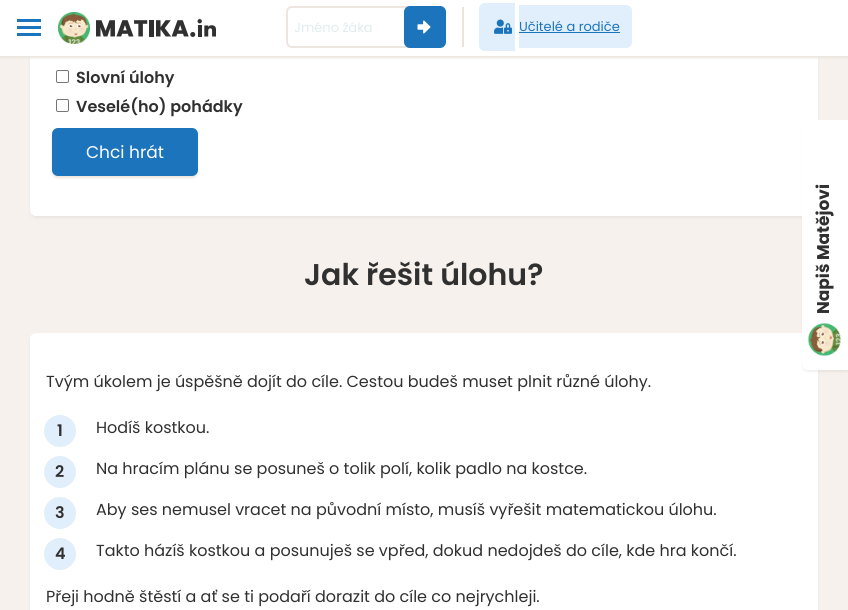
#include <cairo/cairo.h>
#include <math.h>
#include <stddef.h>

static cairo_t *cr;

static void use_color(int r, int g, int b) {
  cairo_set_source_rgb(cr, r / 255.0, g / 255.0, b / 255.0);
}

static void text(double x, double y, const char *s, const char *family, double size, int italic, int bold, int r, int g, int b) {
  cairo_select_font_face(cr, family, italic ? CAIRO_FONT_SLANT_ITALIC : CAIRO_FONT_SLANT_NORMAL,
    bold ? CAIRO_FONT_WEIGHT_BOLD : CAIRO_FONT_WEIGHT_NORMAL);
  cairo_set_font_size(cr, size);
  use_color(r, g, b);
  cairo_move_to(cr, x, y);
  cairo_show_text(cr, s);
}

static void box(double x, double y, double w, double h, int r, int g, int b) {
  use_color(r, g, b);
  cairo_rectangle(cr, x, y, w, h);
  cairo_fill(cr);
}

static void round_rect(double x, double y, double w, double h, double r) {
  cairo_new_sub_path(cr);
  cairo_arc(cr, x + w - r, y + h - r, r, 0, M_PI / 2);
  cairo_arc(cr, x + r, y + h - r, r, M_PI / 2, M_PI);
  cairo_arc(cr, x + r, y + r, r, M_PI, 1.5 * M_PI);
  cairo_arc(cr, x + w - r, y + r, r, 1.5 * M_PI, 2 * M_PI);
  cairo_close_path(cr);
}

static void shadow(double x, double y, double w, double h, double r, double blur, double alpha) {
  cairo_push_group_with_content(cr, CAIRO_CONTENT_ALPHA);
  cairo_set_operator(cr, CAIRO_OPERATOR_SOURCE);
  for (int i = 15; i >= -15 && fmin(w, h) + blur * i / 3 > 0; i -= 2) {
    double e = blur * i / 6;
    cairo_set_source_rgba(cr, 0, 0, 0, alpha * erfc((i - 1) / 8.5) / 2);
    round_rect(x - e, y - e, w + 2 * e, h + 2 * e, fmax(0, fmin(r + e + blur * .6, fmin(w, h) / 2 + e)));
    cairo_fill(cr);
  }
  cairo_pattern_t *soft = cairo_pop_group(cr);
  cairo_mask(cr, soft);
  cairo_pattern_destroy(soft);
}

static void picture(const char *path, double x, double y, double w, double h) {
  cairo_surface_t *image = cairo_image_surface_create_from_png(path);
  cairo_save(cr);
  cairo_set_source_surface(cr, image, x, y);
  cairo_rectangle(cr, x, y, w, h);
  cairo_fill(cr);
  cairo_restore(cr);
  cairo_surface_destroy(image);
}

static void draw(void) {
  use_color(246, 241, 237);
  cairo_paint(cr);
  use_color(236, 229, 224);
  shadow(30, -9, 788, 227, 6, 1, 1);
  use_color(255, 255, 255);
  round_rect(30, -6, 788, 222, 6);
  cairo_fill(cr);
  use_color(236, 229, 224);
  shadow(0, 2, 848, 56, 0, 1, 1);
  box(0, 0, 848, 56, 255, 255, 255);
  box(17, 19, 24, 3, 28, 117, 188);
  box(17, 26, 24, 3, 28, 117, 188);
  box(17, 33, 24, 3, 28, 117, 188);
  picture("img_01.png", 58, 12, 32, 32);
  picture("img_02.png", 96, 19, 120, 18);
  round_rect(287, 7, 158, 40, 5);
  use_color(236, 229, 224);
  cairo_stroke(cr);
  use_color(28, 117, 188);
  round_rect(404, 6, 42, 42, 6);
  cairo_fill(cr);
  picture("img_03.png", 417, 20, 14, 14);
  box(462, 7, 2, 40, 237, 228, 220);
  use_color(225, 238, 251);
  cairo_new_path(cr);
  cairo_move_to(cr, 485, 3);
  cairo_line_to(cr, 515, 3);
  cairo_line_to(cr, 515, 51);
  cairo_line_to(cr, 485, 51);
  cairo_curve_to(cr, 481.5, 51, 479, 48.5, 479, 45);
  cairo_line_to(cr, 479, 9);
  cairo_curve_to(cr, 479, 5.5, 481.5, 3, 485, 3);
  cairo_close_path(cr);
  cairo_fill(cr);
  cairo_new_path(cr);
  cairo_move_to(cr, 519, 5);
  cairo_line_to(cr, 626, 5);
  cairo_curve_to(cr, 629.5, 5, 632, 7.5, 632, 11);
  cairo_line_to(cr, 632, 42);
  cairo_curve_to(cr, 632, 45.5, 629.5, 48, 626, 48);
  cairo_line_to(cr, 519, 48);
  cairo_close_path(cr);
  cairo_fill(cr);
  picture("img_04.png", 494, 19, 18, 15);
  box(519, 32, 101, 1, 28, 117, 188);
  round_rect(56.5, 70.5, 12, 12, 1.5);
  use_color(118, 118, 118);
  cairo_set_line_width(cr, 1);
  cairo_stroke(cr);
  round_rect(56.5, 99.5, 12, 12, 1.5);
  cairo_stroke(cr);
  use_color(236, 229, 224);
  shadow(52, 130, 146, 48, 6, 1, 1);
  use_color(28, 117, 188);
  round_rect(53, 129, 144, 46, 5);
  cairo_fill_preserve(cr);
  cairo_set_line_width(cr, 2);
  cairo_stroke(cr);
  use_color(236, 229, 224);
  shadow(30, 335, 788, 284, 6, 1, 1);
  use_color(255, 255, 255);
  round_rect(30, 333, 788, 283, 6);
  cairo_fill(cr);
  use_color(225, 238, 251);
  cairo_arc(cr, 60, 431, 16, 0, 2 * M_PI);
  cairo_fill(cr);
  cairo_arc(cr, 60, 472, 16, 0, 2 * M_PI);
  cairo_fill(cr);
  cairo_arc(cr, 60, 513, 16, 0, 2 * M_PI);
  cairo_fill(cr);
  cairo_arc(cr, 60, 554, 16, 0, 2 * M_PI);
  cairo_fill(cr);
  use_color(48, 48, 48);
  shadow(802, 122, 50, 250, 6, 1, 0.07);
  use_color(255, 255, 255);
  cairo_new_path(cr);
  cairo_move_to(cr, 808, 120);
  cairo_line_to(cr, 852, 120);
  cairo_line_to(cr, 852, 370);
  cairo_line_to(cr, 808, 370);
  cairo_curve_to(cr, 804.5, 370, 802, 367.5, 802, 364);
  cairo_line_to(cr, 802, 126);
  cairo_curve_to(cr, 802, 122.5, 804.5, 120, 808, 120);
  cairo_close_path(cr);
  cairo_fill(cr);
  picture("img_05.png", 808, 323, 33, 33);
  text(294, 32, "Jméno žáka", "Poppins", 13, 0, 0, 224, 236, 240);
  text(519, 31, "Učitelé a rodiče", "Poppins", 13, 0, 0, 28, 117, 188);
  text(76, 83, "Slovní úlohy", "Poppins SemiBold", 16, 0, 0, 48, 48, 48);
  text(76, 112, "Veselé(ho) pohádky", "Poppins SemiBold", 16, 0, 0, 48, 48, 48);
  text(86, 158, "Chci hrát", "Poppins", 17, 0, 0, 255, 255, 255);
  text(304, 285, "Jak řešit úlohu?", "Poppins SemiBold", 30, 0, 0, 48, 48, 48);
  text(46, 387, "Tvým úkolem je úspěšně dojít do cíle. Cestou budeš muset plnit různé úlohy.", "Poppins", 16, 0, 0, 48, 48, 48);
  text(57, 436, "1", "Poppins SemiBold", 16, 0, 0, 48, 48, 48);
  text(96, 433, "Hodíš kostkou.", "Poppins", 16, 0, 0, 48, 48, 48);
  text(55, 477, "2", "Poppins SemiBold", 16, 0, 0, 48, 48, 48);
  text(96, 474, "Na hracím plánu se posuneš o tolik polí, kolik padlo na kostce.", "Poppins", 16, 0, 0, 48, 48, 48);
  text(55, 518, "3", "Poppins SemiBold", 16, 0, 0, 48, 48, 48);
  text(96, 515, "Aby ses nemusel vracet na původní místo, musíš vyřešit matematickou úlohu.", "Poppins", 16, 0, 0, 48, 48, 48);
  text(55, 559, "4", "Poppins SemiBold", 16, 0, 0, 48, 48, 48);
  text(96, 556, "Takto házíš kostkou a posunuješ se vpřed, dokud nedojdeš do cíle, kde hra končí.", "Poppins", 16, 0, 0, 48, 48, 48);
  text(46, 602, "Přeji hodně štěstí a ať se ti podaří dorazit do cíle co nejrychleji.", "Poppins", 16, 0, 0, 48, 48, 48);
  cairo_save(cr);
  cairo_translate(cr, 829, 314);
  cairo_rotate(cr, -90 * M_PI / 180);
  text(0, 0, "Napiš Matějovi", "Poppins", 17, 0, 1, 48, 48, 48);
  cairo_restore(cr);
}

int main(void) {
  cairo_surface_t *surface = cairo_image_surface_create(CAIRO_FORMAT_RGB24, 848, 610);
  cr = cairo_create(surface);
  cairo_font_options_t *options = cairo_font_options_create();
  cairo_font_options_set_hint_metrics(options, CAIRO_HINT_METRICS_OFF);
  cairo_font_options_set_hint_style(options, CAIRO_HINT_STYLE_NONE);
  cairo_set_font_options(cr, options);
  cairo_set_miter_limit(cr, 4);
  draw();
  cairo_surface_write_to_png(surface, "out.png");
  cairo_font_options_destroy(options);
  cairo_destroy(cr);
  cairo_surface_destroy(surface);
  return 0;
}
